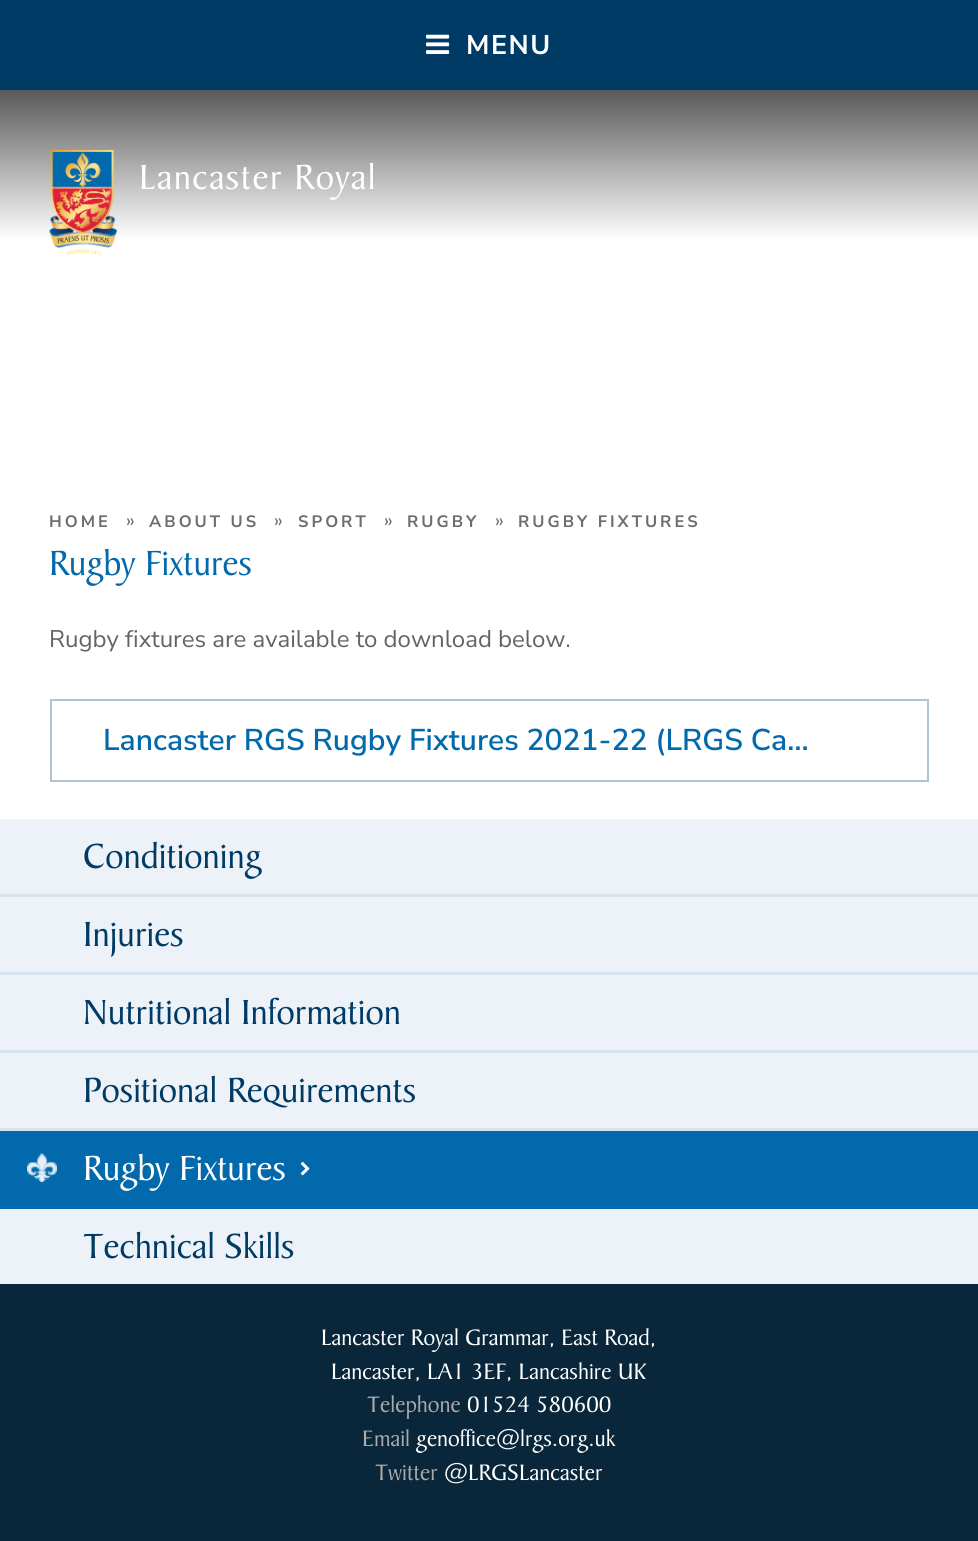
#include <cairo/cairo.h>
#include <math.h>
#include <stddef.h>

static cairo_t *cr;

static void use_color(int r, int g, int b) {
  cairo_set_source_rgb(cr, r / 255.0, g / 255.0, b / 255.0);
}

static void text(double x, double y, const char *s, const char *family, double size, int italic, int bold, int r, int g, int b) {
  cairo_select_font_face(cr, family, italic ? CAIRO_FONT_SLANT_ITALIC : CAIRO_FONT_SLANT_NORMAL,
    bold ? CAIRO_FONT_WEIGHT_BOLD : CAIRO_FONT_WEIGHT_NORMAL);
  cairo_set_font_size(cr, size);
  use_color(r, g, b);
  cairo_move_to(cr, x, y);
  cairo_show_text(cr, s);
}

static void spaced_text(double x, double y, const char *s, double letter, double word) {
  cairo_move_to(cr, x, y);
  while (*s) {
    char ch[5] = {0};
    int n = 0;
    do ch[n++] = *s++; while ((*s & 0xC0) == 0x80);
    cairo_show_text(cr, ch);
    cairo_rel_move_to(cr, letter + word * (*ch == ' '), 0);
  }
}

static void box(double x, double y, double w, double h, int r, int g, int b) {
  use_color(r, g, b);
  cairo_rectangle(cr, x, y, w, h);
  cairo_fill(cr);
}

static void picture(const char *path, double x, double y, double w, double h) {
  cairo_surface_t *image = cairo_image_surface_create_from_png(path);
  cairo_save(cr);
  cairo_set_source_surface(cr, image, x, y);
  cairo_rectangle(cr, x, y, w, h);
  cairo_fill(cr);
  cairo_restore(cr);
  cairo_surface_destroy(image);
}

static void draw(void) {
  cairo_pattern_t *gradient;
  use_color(255, 255, 255);
  cairo_paint(cr);
  box(0, 0, 978, 90, 0, 59, 101);
  picture("img_01.png", 426, 34, 24, 20);
  gradient = cairo_pattern_create_linear(489, 240, 489, 90);
  cairo_pattern_add_color_stop_rgba(gradient, 0, 1, 1, 1, 1);
  cairo_pattern_add_color_stop_rgba(gradient, 1, 0.349, 0.349, 0.349, 1);
  cairo_set_source(cr, gradient);
  cairo_pattern_destroy(gradient);
  cairo_rectangle(cr, 0, 90, 978, 148);
  cairo_fill(cr);
  picture("img_02.png", 49, 150, 68, 105);
  cairo_rectangle(cr, 51, 700, 877, 81);
  use_color(179, 196, 209);
  cairo_stroke(cr);
  box(0, 819, 978, 465, 236, 242, 247);
  box(0, 894, 978, 3, 213, 228, 239);
  box(0, 972, 978, 3, 213, 228, 239);
  box(0, 1050, 978, 3, 213, 228, 239);
  box(0, 1128, 978, 3, 213, 228, 239);
  box(0, 1131, 978, 78, 1, 105, 172);
  picture("img_03.png", 27, 1153, 30, 29);
  picture("img_04.png", 300, 1161, 10, 15);
  box(0, 1284, 978, 257, 9, 38, 58);
  cairo_select_font_face(cr, "Nunito Sans", CAIRO_FONT_SLANT_NORMAL, CAIRO_FONT_WEIGHT_BOLD);
  cairo_set_font_size(cr, 27);
  use_color(255, 255, 255);
  spaced_text(466, 54, "MENU", 1.5, 0);
  cairo_select_font_face(cr, "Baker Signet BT", CAIRO_FONT_SLANT_NORMAL, CAIRO_FONT_WEIGHT_NORMAL);
  cairo_set_font_size(cr, 37.5);
  spaced_text(139, 189, "Lancaster Royal", 1.5, 0);
  cairo_select_font_face(cr, "Nunito Sans", CAIRO_FONT_SLANT_NORMAL, CAIRO_FONT_WEIGHT_BOLD);
  cairo_set_font_size(cr, 16.5);
  use_color(109, 109, 109);
  spaced_text(49, 527, "HOME", 3, 0);
  text(126, 527, "»", "Nunito Sans", 20, 0, 0, 109, 109, 109);
  cairo_select_font_face(cr, "Nunito Sans", CAIRO_FONT_SLANT_NORMAL, CAIRO_FONT_WEIGHT_BOLD);
  cairo_set_font_size(cr, 16.5);
  spaced_text(149, 527, "ABOUT US", 3, 0);
  text(274, 527, "»", "Nunito Sans", 20, 0, 0, 109, 109, 109);
  cairo_select_font_face(cr, "Nunito Sans", CAIRO_FONT_SLANT_NORMAL, CAIRO_FONT_WEIGHT_BOLD);
  cairo_set_font_size(cr, 16.5);
  spaced_text(298, 527, "SPORT", 3, 0);
  text(384, 527, "»", "Nunito Sans", 20, 0, 0, 109, 109, 109);
  cairo_select_font_face(cr, "Nunito Sans", CAIRO_FONT_SLANT_NORMAL, CAIRO_FONT_WEIGHT_BOLD);
  cairo_set_font_size(cr, 16.5);
  spaced_text(407, 527, "RUGBY", 3, 0);
  text(495, 527, "»", "Nunito Sans", 20, 0, 0, 109, 109, 109);
  cairo_select_font_face(cr, "Nunito Sans", CAIRO_FONT_SLANT_NORMAL, CAIRO_FONT_WEIGHT_BOLD);
  cairo_set_font_size(cr, 16.5);
  spaced_text(518, 527, "RUGBY FIXTURES", 3, 0);
  text(49, 575, "Rugby Fixtures", "Baker Signet BT", 37.5, 0, 0, 1, 105, 172);
  text(49, 647, "Rugby fixtures are available to download below.", "Nunito Sans", 24, 0, 0, 99, 99, 99);
  text(103, 750, "Lancaster RGS Rugby Fixtures 2021-22 (LRGS Ca…", "Nunito Sans SemiBold", 30, 0, 0, 1, 105, 172);
  text(83, 868, "Conditioning", "Baker Signet BT", 37.5, 0, 0, 0, 59, 101);
  text(83, 946, "Injuries", "Baker Signet BT", 37.5, 0, 0, 0, 59, 101);
  text(83, 1024, "Nutritional Information", "Baker Signet BT", 37.5, 0, 0, 0, 59, 101);
  text(83, 1102, "Positional Requirements", "Baker Signet BT", 37.5, 0, 0, 0, 59, 101);
  text(83, 1180, "Rugby Fixtures", "Baker Signet BT", 37.5, 0, 0, 255, 255, 255);
  text(83, 1258, "Technical Skills", "Baker Signet BT", 37.5, 0, 0, 0, 59, 101);
  text(321, 1345, "Lancaster Royal Grammar, East Road,", "Baker Signet BT", 24, 0, 0, 255, 255, 255);
  text(331, 1379, "Lancaster, LA1 3EF, Lancashire UK", "Baker Signet BT", 24, 0, 0, 255, 255, 255);
  text(367, 1412, "Telephone", "Baker Signet BT", 24, 0, 0, 170, 170, 170);
  text(467, 1412, "01524 580600", "Baker Signet BT", 24, 0, 0, 255, 255, 255);
  text(362, 1446, "Email", "Baker Signet BT", 24, 0, 0, 170, 170, 170);
  text(416, 1446, "genoffice@lrgs.org.uk", "Baker Signet BT", 24, 0, 0, 255, 255, 255);
  text(375, 1480, "Twitter", "Baker Signet BT", 24, 0, 0, 170, 170, 170);
  text(444, 1480, "@LRGSLancaster", "Baker Signet BT", 24, 0, 0, 255, 255, 255);
}

int main(void) {
  cairo_surface_t *surface = cairo_image_surface_create(CAIRO_FORMAT_RGB24, 978, 1541);
  cr = cairo_create(surface);
  cairo_font_options_t *options = cairo_font_options_create();
  cairo_font_options_set_hint_metrics(options, CAIRO_HINT_METRICS_OFF);
  cairo_font_options_set_hint_style(options, CAIRO_HINT_STYLE_NONE);
  cairo_set_font_options(cr, options);
  cairo_set_miter_limit(cr, 4);
  draw();
  cairo_surface_write_to_png(surface, "out.png");
  cairo_font_options_destroy(options);
  cairo_destroy(cr);
  cairo_surface_destroy(surface);
  return 0;
}
